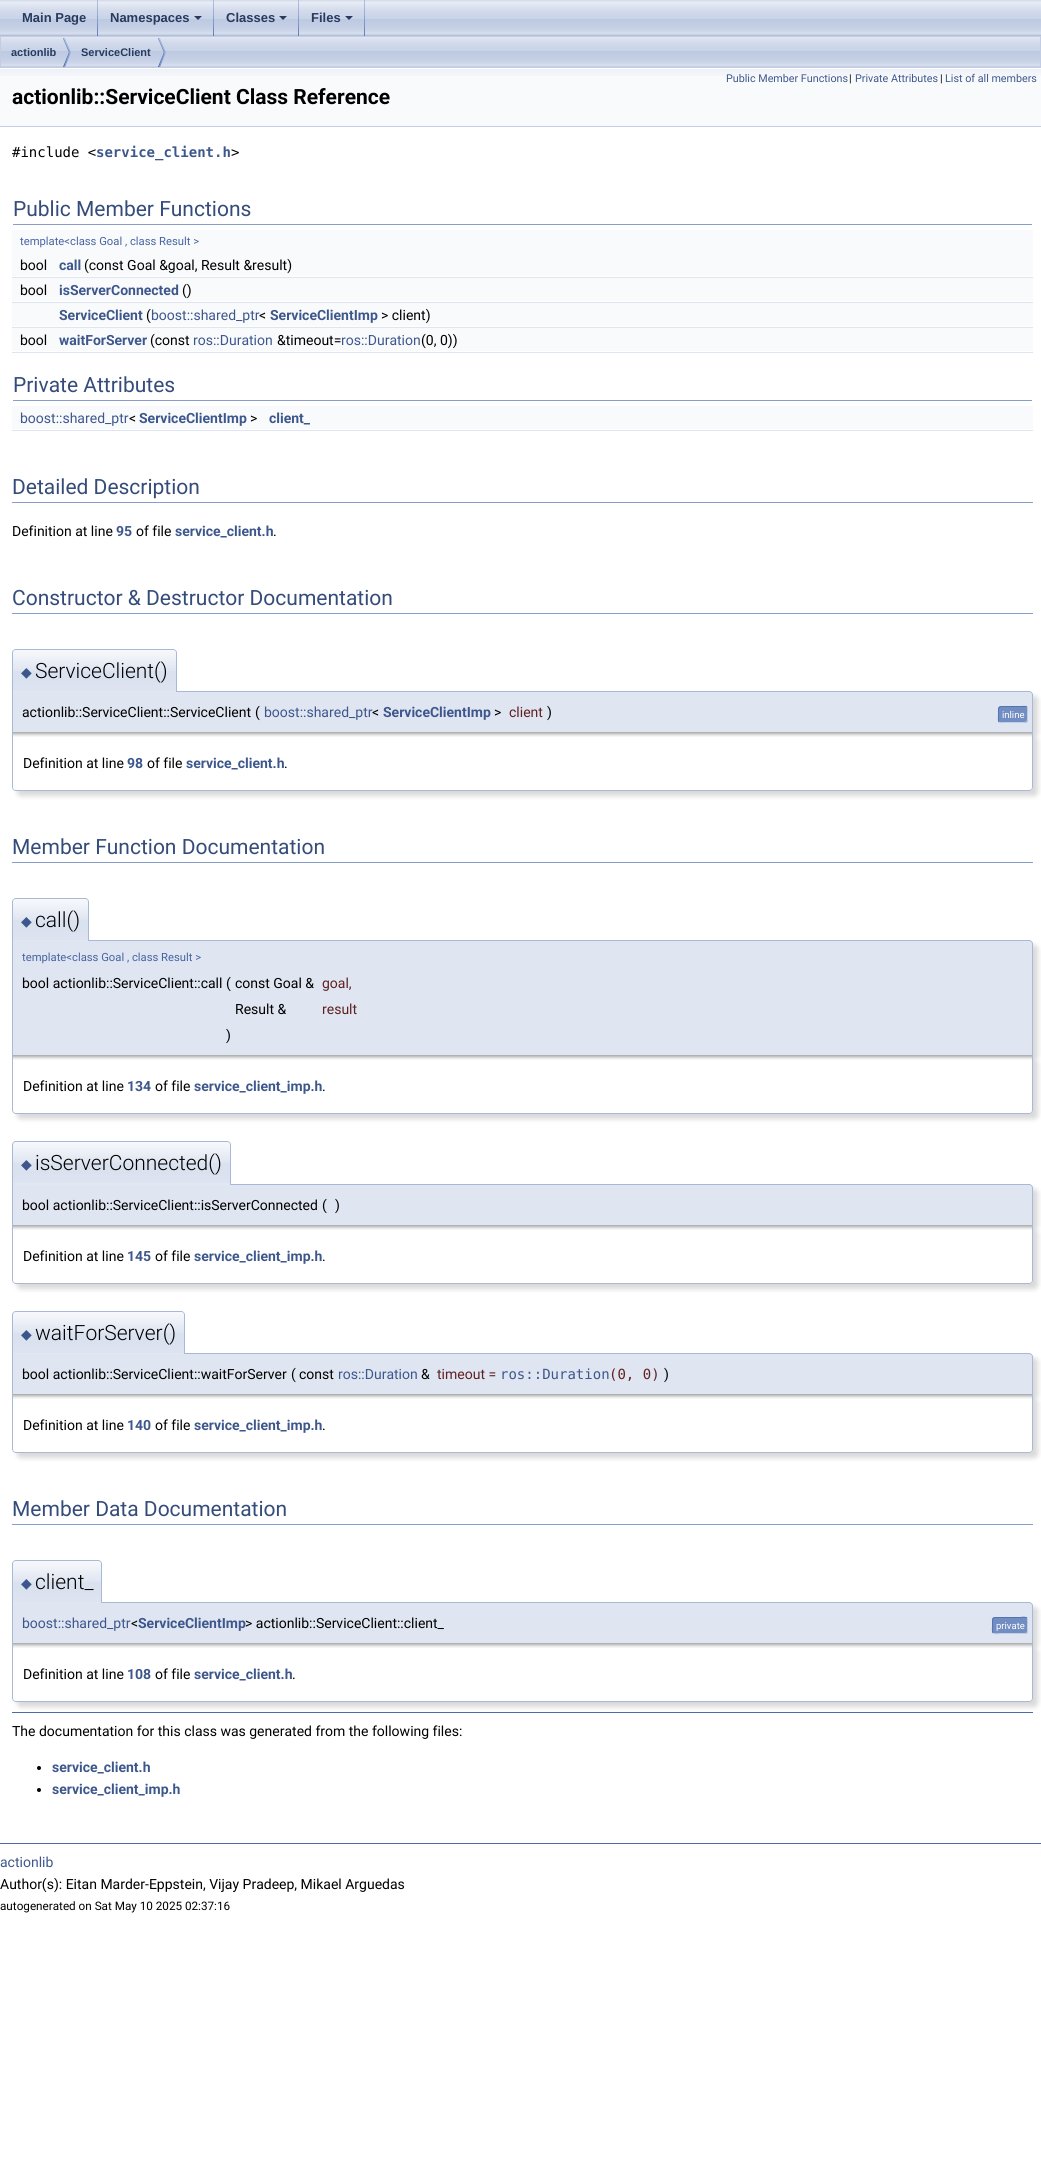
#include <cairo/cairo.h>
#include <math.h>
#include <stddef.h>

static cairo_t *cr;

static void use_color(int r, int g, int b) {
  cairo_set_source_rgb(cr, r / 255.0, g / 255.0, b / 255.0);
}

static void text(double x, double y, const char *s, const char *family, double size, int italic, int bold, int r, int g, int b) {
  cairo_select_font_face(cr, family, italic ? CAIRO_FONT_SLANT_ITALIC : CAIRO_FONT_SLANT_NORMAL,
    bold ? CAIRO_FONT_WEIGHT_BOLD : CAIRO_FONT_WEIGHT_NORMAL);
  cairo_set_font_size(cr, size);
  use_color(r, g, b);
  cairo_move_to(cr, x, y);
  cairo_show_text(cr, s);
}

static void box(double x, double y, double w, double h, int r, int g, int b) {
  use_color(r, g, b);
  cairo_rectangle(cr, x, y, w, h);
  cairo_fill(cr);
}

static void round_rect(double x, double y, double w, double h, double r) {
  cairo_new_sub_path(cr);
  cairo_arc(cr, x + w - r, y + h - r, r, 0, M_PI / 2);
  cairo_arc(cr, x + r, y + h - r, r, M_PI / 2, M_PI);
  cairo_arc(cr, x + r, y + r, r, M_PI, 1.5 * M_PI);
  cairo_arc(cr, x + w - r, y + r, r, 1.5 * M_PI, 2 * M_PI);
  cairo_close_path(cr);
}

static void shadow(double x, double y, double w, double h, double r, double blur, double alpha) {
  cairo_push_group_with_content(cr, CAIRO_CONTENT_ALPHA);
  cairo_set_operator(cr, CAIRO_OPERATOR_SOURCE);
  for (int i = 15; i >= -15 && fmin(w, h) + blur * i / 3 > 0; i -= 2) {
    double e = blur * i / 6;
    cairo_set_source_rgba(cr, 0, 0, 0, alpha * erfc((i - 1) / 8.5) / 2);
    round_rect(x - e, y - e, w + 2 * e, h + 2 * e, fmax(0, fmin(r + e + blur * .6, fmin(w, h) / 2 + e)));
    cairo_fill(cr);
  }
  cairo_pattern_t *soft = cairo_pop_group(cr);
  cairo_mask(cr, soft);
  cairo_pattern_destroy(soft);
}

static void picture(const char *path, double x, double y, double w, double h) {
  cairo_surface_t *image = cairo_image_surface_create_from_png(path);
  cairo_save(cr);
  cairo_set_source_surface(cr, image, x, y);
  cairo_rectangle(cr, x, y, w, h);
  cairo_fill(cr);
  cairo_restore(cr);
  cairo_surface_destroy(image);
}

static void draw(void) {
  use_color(255, 255, 255);
  cairo_paint(cr);
  picture("img_01.png", 0, 0, 1041, 36);
  picture("img_02.png", 97, 0, 1, 36);
  picture("img_02.png", 213, 0, 1, 36);
  use_color(40, 58, 93);
  cairo_new_path(cr);
  cairo_move_to(cr, 194, 16);
  cairo_line_to(cr, 202, 16);
  cairo_line_to(cr, 198, 20);
  cairo_close_path(cr);
  cairo_fill(cr);
  picture("img_02.png", 298, 0, 1, 36);
  cairo_new_path(cr);
  cairo_move_to(cr, 279, 16);
  cairo_line_to(cr, 287, 16);
  cairo_line_to(cr, 283, 20);
  cairo_close_path(cr);
  cairo_fill(cr);
  picture("img_02.png", 364, 0, 1, 36);
  cairo_new_path(cr);
  cairo_move_to(cr, 345, 16);
  cairo_line_to(cr, 353, 16);
  cairo_line_to(cr, 349, 20);
  cairo_close_path(cr);
  cairo_fill(cr);
  picture("img_03.png", 1, 37, 1039, 30);
  cairo_rectangle(cr, 0.5, 36.5, 1040, 31);
  use_color(194, 205, 228);
  cairo_set_line_width(cr, 1);
  cairo_stroke(cr);
  picture("img_04.png", 63, 38, 8, 29);
  picture("img_04.png", 158, 38, 8, 29);
  box(0, 76, 1041, 50, 249, 250, 252);
  picture("img_05.png", 0, 68, 1041, 8);
  box(0, 126, 1041, 1, 196, 207, 229);
  box(13, 224, 1019, 1, 135, 158, 203);
  box(12, 230, 1021, 23, 249, 250, 252);
  box(12, 253, 1021, 23, 249, 250, 252);
  box(12, 277, 1021, 1, 222, 228, 240);
  box(12, 278, 1021, 23, 249, 250, 252);
  box(12, 302, 1021, 1, 222, 228, 240);
  box(12, 303, 1021, 23, 249, 250, 252);
  box(12, 327, 1021, 1, 222, 228, 240);
  box(12, 328, 1021, 23, 249, 250, 252);
  box(12, 352, 1021, 1, 222, 228, 240);
  box(13, 400, 1019, 1, 135, 158, 203);
  box(12, 406, 1021, 23, 249, 250, 252);
  box(12, 430, 1021, 1, 222, 228, 240);
  box(12, 502, 1021, 1, 135, 158, 203);
  box(12, 613, 1021, 1, 135, 158, 203);
  use_color(0, 0, 0);
  shadow(17, 696, 1021, 41, 4, 2.5, 0.15);
  use_color(223, 229, 241);
  cairo_new_path(cr);
  cairo_move_to(cr, 12, 691);
  cairo_line_to(cr, 1029, 691);
  cairo_curve_to(cr, 1031, 691, 1033, 693, 1033, 695);
  cairo_line_to(cr, 1033, 732);
  cairo_line_to(cr, 12, 732);
  cairo_close_path(cr);
  cairo_fill(cr);
  use_color(168, 184, 217);
  cairo_set_fill_rule(cr, CAIRO_FILL_RULE_EVEN_ODD);
  cairo_new_path(cr);
  cairo_move_to(cr, 12, 691);
  cairo_line_to(cr, 1029, 691);
  cairo_curve_to(cr, 1031, 691, 1033, 693, 1033, 695);
  cairo_line_to(cr, 1033, 732);
  cairo_line_to(cr, 12, 732);
  cairo_close_path(cr);
  cairo_move_to(cr, 13, 692);
  cairo_line_to(cr, 1029, 692);
  cairo_curve_to(cr, 1031, 692, 1032, 693, 1032, 695);
  cairo_line_to(cr, 1032, 732);
  cairo_line_to(cr, 13, 732);
  cairo_close_path(cr);
  cairo_fill(cr);
  use_color(226, 232, 242);
  cairo_new_path(cr);
  cairo_move_to(cr, 16, 649);
  cairo_line_to(cr, 173, 649);
  cairo_curve_to(cr, 175, 649, 177, 651, 177, 653);
  cairo_line_to(cr, 177, 692);
  cairo_line_to(cr, 12, 692);
  cairo_line_to(cr, 12, 653);
  cairo_curve_to(cr, 12, 651, 14, 649, 16, 649);
  cairo_close_path(cr);
  cairo_fill(cr);
  picture("img_06.png", 12, 650, 165, 41);
  use_color(168, 184, 217);
  cairo_new_path(cr);
  cairo_move_to(cr, 16, 649);
  cairo_line_to(cr, 173, 649);
  cairo_curve_to(cr, 175, 649, 177, 651, 177, 653);
  cairo_line_to(cr, 177, 692);
  cairo_line_to(cr, 12, 692);
  cairo_line_to(cr, 12, 653);
  cairo_curve_to(cr, 12, 651, 14, 649, 16, 649);
  cairo_close_path(cr);
  cairo_move_to(cr, 16, 650);
  cairo_line_to(cr, 173, 650);
  cairo_curve_to(cr, 175, 650, 176, 651, 176, 653);
  cairo_line_to(cr, 176, 692);
  cairo_line_to(cr, 13, 692);
  cairo_line_to(cr, 13, 653);
  cairo_curve_to(cr, 13, 651, 14, 650, 16, 650);
  cairo_close_path(cr);
  cairo_fill(cr);
  use_color(114, 141, 193);
  round_rect(998, 706, 30, 17, 3);
  cairo_fill(cr);
  cairo_new_path(cr);
  cairo_move_to(cr, 1027, 707);
  cairo_curve_to(cr, 1028, 708.5, 1027.5, 713, 1027.5, 714.5);
  cairo_curve_to(cr, 1027.5, 722, 1028.5, 722.5, 1021, 722.5);
  cairo_line_to(cr, 1005, 722.5);
  cairo_curve_to(cr, 1003.5, 722.5, 1000.5, 723, 999, 722);
  use_color(196, 207, 229);
  cairo_stroke(cr);
  cairo_new_path(cr);
  cairo_move_to(cr, 999, 722);
  cairo_curve_to(cr, 998, 720.5, 998.5, 716, 998.5, 714.5);
  cairo_curve_to(cr, 998.5, 707, 997.5, 706.5, 1005, 706.5);
  cairo_line_to(cr, 1021, 706.5);
  cairo_curve_to(cr, 1022.5, 706.5, 1025.5, 706, 1027, 707);
  use_color(83, 115, 180);
  cairo_stroke(cr);
  use_color(0, 0, 0);
  shadow(17, 737, 1021, 59, 4, 2.5, 0.15);
  use_color(255, 255, 255);
  cairo_new_path(cr);
  cairo_move_to(cr, 12, 732);
  cairo_line_to(cr, 1033, 732);
  cairo_line_to(cr, 1033, 787);
  cairo_curve_to(cr, 1033, 789, 1031, 791, 1029, 791);
  cairo_line_to(cr, 16, 791);
  cairo_curve_to(cr, 14, 791, 12, 789, 12, 787);
  cairo_close_path(cr);
  cairo_fill(cr);
  picture("img_07.png", 13, 732, 1019, 5);
  use_color(168, 184, 217);
  cairo_new_path(cr);
  cairo_move_to(cr, 12, 732);
  cairo_line_to(cr, 1033, 732);
  cairo_line_to(cr, 1033, 787);
  cairo_curve_to(cr, 1033, 789, 1031, 791, 1029, 791);
  cairo_line_to(cr, 16, 791);
  cairo_curve_to(cr, 14, 791, 12, 789, 12, 787);
  cairo_close_path(cr);
  cairo_move_to(cr, 13, 732);
  cairo_line_to(cr, 1032, 732);
  cairo_line_to(cr, 1032, 787);
  cairo_curve_to(cr, 1032, 789, 1031, 790, 1029, 790);
  cairo_line_to(cr, 16, 790);
  cairo_curve_to(cr, 14, 790, 13, 789, 13, 787);
  cairo_close_path(cr);
  cairo_fill(cr);
  box(12, 862, 1021, 1, 135, 158, 203);
  use_color(0, 0, 0);
  shadow(17, 945, 1021, 115, 4, 2.5, 0.15);
  use_color(223, 229, 241);
  cairo_new_path(cr);
  cairo_move_to(cr, 12, 940);
  cairo_line_to(cr, 1029, 940);
  cairo_curve_to(cr, 1031, 940, 1033, 942, 1033, 944);
  cairo_line_to(cr, 1033, 1055);
  cairo_line_to(cr, 12, 1055);
  cairo_close_path(cr);
  cairo_fill(cr);
  use_color(168, 184, 217);
  cairo_new_path(cr);
  cairo_move_to(cr, 12, 940);
  cairo_line_to(cr, 1029, 940);
  cairo_curve_to(cr, 1031, 940, 1033, 942, 1033, 944);
  cairo_line_to(cr, 1033, 1055);
  cairo_line_to(cr, 12, 1055);
  cairo_close_path(cr);
  cairo_move_to(cr, 13, 941);
  cairo_line_to(cr, 1029, 941);
  cairo_curve_to(cr, 1031, 941, 1032, 942, 1032, 944);
  cairo_line_to(cr, 1032, 1055);
  cairo_line_to(cr, 13, 1055);
  cairo_close_path(cr);
  cairo_fill(cr);
  use_color(226, 232, 242);
  cairo_new_path(cr);
  cairo_move_to(cr, 16, 898);
  cairo_line_to(cr, 85, 898);
  cairo_curve_to(cr, 87, 898, 89, 900, 89, 902);
  cairo_line_to(cr, 89, 941);
  cairo_line_to(cr, 12, 941);
  cairo_line_to(cr, 12, 902);
  cairo_curve_to(cr, 12, 900, 14, 898, 16, 898);
  cairo_close_path(cr);
  cairo_fill(cr);
  picture("img_08.png", 12, 899, 77, 41);
  use_color(168, 184, 217);
  cairo_new_path(cr);
  cairo_move_to(cr, 16, 898);
  cairo_line_to(cr, 85, 898);
  cairo_curve_to(cr, 87, 898, 89, 900, 89, 902);
  cairo_line_to(cr, 89, 941);
  cairo_line_to(cr, 12, 941);
  cairo_line_to(cr, 12, 902);
  cairo_curve_to(cr, 12, 900, 14, 898, 16, 898);
  cairo_close_path(cr);
  cairo_move_to(cr, 16, 899);
  cairo_line_to(cr, 85, 899);
  cairo_curve_to(cr, 87, 899, 88, 900, 88, 902);
  cairo_line_to(cr, 88, 941);
  cairo_line_to(cr, 13, 941);
  cairo_line_to(cr, 13, 902);
  cairo_curve_to(cr, 13, 900, 14, 899, 16, 899);
  cairo_close_path(cr);
  cairo_fill(cr);
  use_color(0, 0, 0);
  shadow(17, 1060, 1021, 59, 4, 2.5, 0.15);
  use_color(255, 255, 255);
  cairo_new_path(cr);
  cairo_move_to(cr, 12, 1055);
  cairo_line_to(cr, 1033, 1055);
  cairo_line_to(cr, 1033, 1110);
  cairo_curve_to(cr, 1033, 1112, 1031, 1114, 1029, 1114);
  cairo_line_to(cr, 16, 1114);
  cairo_curve_to(cr, 14, 1114, 12, 1112, 12, 1110);
  cairo_close_path(cr);
  cairo_fill(cr);
  picture("img_07.png", 13, 1055, 1019, 5);
  use_color(168, 184, 217);
  cairo_new_path(cr);
  cairo_move_to(cr, 12, 1055);
  cairo_line_to(cr, 1033, 1055);
  cairo_line_to(cr, 1033, 1110);
  cairo_curve_to(cr, 1033, 1112, 1031, 1114, 1029, 1114);
  cairo_line_to(cr, 16, 1114);
  cairo_curve_to(cr, 14, 1114, 12, 1112, 12, 1110);
  cairo_close_path(cr);
  cairo_move_to(cr, 13, 1055);
  cairo_line_to(cr, 1032, 1055);
  cairo_line_to(cr, 1032, 1110);
  cairo_curve_to(cr, 1032, 1112, 1031, 1113, 1029, 1113);
  cairo_line_to(cr, 16, 1113);
  cairo_curve_to(cr, 14, 1113, 13, 1112, 13, 1110);
  cairo_close_path(cr);
  cairo_fill(cr);
  use_color(0, 0, 0);
  shadow(17, 1189, 1021, 41, 4, 2.5, 0.15);
  use_color(223, 229, 241);
  cairo_new_path(cr);
  cairo_move_to(cr, 12, 1184);
  cairo_line_to(cr, 1029, 1184);
  cairo_curve_to(cr, 1031, 1184, 1033, 1186, 1033, 1188);
  cairo_line_to(cr, 1033, 1225);
  cairo_line_to(cr, 12, 1225);
  cairo_close_path(cr);
  cairo_fill(cr);
  use_color(168, 184, 217);
  cairo_new_path(cr);
  cairo_move_to(cr, 12, 1184);
  cairo_line_to(cr, 1029, 1184);
  cairo_curve_to(cr, 1031, 1184, 1033, 1186, 1033, 1188);
  cairo_line_to(cr, 1033, 1225);
  cairo_line_to(cr, 12, 1225);
  cairo_close_path(cr);
  cairo_move_to(cr, 13, 1185);
  cairo_line_to(cr, 1029, 1185);
  cairo_curve_to(cr, 1031, 1185, 1032, 1186, 1032, 1188);
  cairo_line_to(cr, 1032, 1225);
  cairo_line_to(cr, 13, 1225);
  cairo_close_path(cr);
  cairo_fill(cr);
  use_color(226, 232, 242);
  cairo_new_path(cr);
  cairo_move_to(cr, 16, 1141);
  cairo_line_to(cr, 227, 1141);
  cairo_curve_to(cr, 229, 1141, 231, 1143, 231, 1145);
  cairo_line_to(cr, 231, 1185);
  cairo_line_to(cr, 12, 1185);
  cairo_line_to(cr, 12, 1145);
  cairo_curve_to(cr, 12, 1143, 14, 1141, 16, 1141);
  cairo_close_path(cr);
  cairo_fill(cr);
  picture("img_09.png", 12, 1142, 219, 41);
  use_color(168, 184, 217);
  cairo_new_path(cr);
  cairo_move_to(cr, 16, 1141);
  cairo_line_to(cr, 227, 1141);
  cairo_curve_to(cr, 229, 1141, 231, 1143, 231, 1145);
  cairo_line_to(cr, 231, 1185);
  cairo_line_to(cr, 12, 1185);
  cairo_line_to(cr, 12, 1145);
  cairo_curve_to(cr, 12, 1143, 14, 1141, 16, 1141);
  cairo_close_path(cr);
  cairo_move_to(cr, 16, 1142);
  cairo_line_to(cr, 227, 1142);
  cairo_curve_to(cr, 229, 1142, 230, 1143, 230, 1145);
  cairo_line_to(cr, 230, 1185);
  cairo_line_to(cr, 13, 1185);
  cairo_line_to(cr, 13, 1145);
  cairo_curve_to(cr, 13, 1143, 14, 1142, 16, 1142);
  cairo_close_path(cr);
  cairo_fill(cr);
  use_color(0, 0, 0);
  shadow(17, 1230, 1021, 59, 4, 2.5, 0.15);
  use_color(255, 255, 255);
  cairo_new_path(cr);
  cairo_move_to(cr, 12, 1225);
  cairo_line_to(cr, 1033, 1225);
  cairo_line_to(cr, 1033, 1280);
  cairo_curve_to(cr, 1033, 1282, 1031, 1284, 1029, 1284);
  cairo_line_to(cr, 16, 1284);
  cairo_curve_to(cr, 14, 1284, 12, 1282, 12, 1280);
  cairo_close_path(cr);
  cairo_fill(cr);
  picture("img_07.png", 13, 1225, 1019, 5);
  use_color(168, 184, 217);
  cairo_new_path(cr);
  cairo_move_to(cr, 12, 1225);
  cairo_line_to(cr, 1033, 1225);
  cairo_line_to(cr, 1033, 1280);
  cairo_curve_to(cr, 1033, 1282, 1031, 1284, 1029, 1284);
  cairo_line_to(cr, 16, 1284);
  cairo_curve_to(cr, 14, 1284, 12, 1282, 12, 1280);
  cairo_close_path(cr);
  cairo_move_to(cr, 13, 1225);
  cairo_line_to(cr, 1032, 1225);
  cairo_line_to(cr, 1032, 1280);
  cairo_curve_to(cr, 1032, 1282, 1031, 1283, 1029, 1283);
  cairo_line_to(cr, 16, 1283);
  cairo_curve_to(cr, 14, 1283, 13, 1282, 13, 1280);
  cairo_close_path(cr);
  cairo_fill(cr);
  use_color(0, 0, 0);
  shadow(17, 1358, 1021, 41, 4, 2.5, 0.15);
  use_color(223, 229, 241);
  cairo_new_path(cr);
  cairo_move_to(cr, 12, 1353);
  cairo_line_to(cr, 1029, 1353);
  cairo_curve_to(cr, 1031, 1353, 1033, 1355, 1033, 1357);
  cairo_line_to(cr, 1033, 1394);
  cairo_line_to(cr, 12, 1394);
  cairo_close_path(cr);
  cairo_fill(cr);
  use_color(168, 184, 217);
  cairo_new_path(cr);
  cairo_move_to(cr, 12, 1353);
  cairo_line_to(cr, 1029, 1353);
  cairo_curve_to(cr, 1031, 1353, 1033, 1355, 1033, 1357);
  cairo_line_to(cr, 1033, 1394);
  cairo_line_to(cr, 12, 1394);
  cairo_close_path(cr);
  cairo_move_to(cr, 13, 1354);
  cairo_line_to(cr, 1029, 1354);
  cairo_curve_to(cr, 1031, 1354, 1032, 1355, 1032, 1357);
  cairo_line_to(cr, 1032, 1394);
  cairo_line_to(cr, 13, 1394);
  cairo_close_path(cr);
  cairo_fill(cr);
  use_color(226, 232, 242);
  cairo_new_path(cr);
  cairo_move_to(cr, 16, 1311);
  cairo_line_to(cr, 181, 1311);
  cairo_curve_to(cr, 183, 1311, 185, 1313, 185, 1315);
  cairo_line_to(cr, 185, 1354);
  cairo_line_to(cr, 12, 1354);
  cairo_line_to(cr, 12, 1315);
  cairo_curve_to(cr, 12, 1313, 14, 1311, 16, 1311);
  cairo_close_path(cr);
  cairo_fill(cr);
  picture("img_10.png", 12, 1312, 173, 41);
  use_color(168, 184, 217);
  cairo_new_path(cr);
  cairo_move_to(cr, 16, 1311);
  cairo_line_to(cr, 181, 1311);
  cairo_curve_to(cr, 183, 1311, 185, 1313, 185, 1315);
  cairo_line_to(cr, 185, 1354);
  cairo_line_to(cr, 12, 1354);
  cairo_line_to(cr, 12, 1315);
  cairo_curve_to(cr, 12, 1313, 14, 1311, 16, 1311);
  cairo_close_path(cr);
  cairo_move_to(cr, 16, 1312);
  cairo_line_to(cr, 181, 1312);
  cairo_curve_to(cr, 183, 1312, 184, 1313, 184, 1315);
  cairo_line_to(cr, 184, 1354);
  cairo_line_to(cr, 13, 1354);
  cairo_line_to(cr, 13, 1315);
  cairo_curve_to(cr, 13, 1313, 14, 1312, 16, 1312);
  cairo_close_path(cr);
  cairo_fill(cr);
  use_color(0, 0, 0);
  shadow(17, 1399, 1021, 59, 4, 2.5, 0.15);
  use_color(255, 255, 255);
  cairo_new_path(cr);
  cairo_move_to(cr, 12, 1394);
  cairo_line_to(cr, 1033, 1394);
  cairo_line_to(cr, 1033, 1449);
  cairo_curve_to(cr, 1033, 1451, 1031, 1453, 1029, 1453);
  cairo_line_to(cr, 16, 1453);
  cairo_curve_to(cr, 14, 1453, 12, 1451, 12, 1449);
  cairo_close_path(cr);
  cairo_fill(cr);
  picture("img_07.png", 13, 1394, 1019, 5);
  use_color(168, 184, 217);
  cairo_new_path(cr);
  cairo_move_to(cr, 12, 1394);
  cairo_line_to(cr, 1033, 1394);
  cairo_line_to(cr, 1033, 1449);
  cairo_curve_to(cr, 1033, 1451, 1031, 1453, 1029, 1453);
  cairo_line_to(cr, 16, 1453);
  cairo_curve_to(cr, 14, 1453, 12, 1451, 12, 1449);
  cairo_close_path(cr);
  cairo_move_to(cr, 13, 1394);
  cairo_line_to(cr, 1032, 1394);
  cairo_line_to(cr, 1032, 1449);
  cairo_curve_to(cr, 1032, 1451, 1031, 1452, 1029, 1452);
  cairo_line_to(cr, 16, 1452);
  cairo_curve_to(cr, 14, 1452, 13, 1451, 13, 1449);
  cairo_close_path(cr);
  cairo_fill(cr);
  box(12, 1524, 1021, 1, 135, 158, 203);
  use_color(0, 0, 0);
  shadow(17, 1607, 1021, 41, 4, 2.5, 0.15);
  use_color(223, 229, 241);
  cairo_new_path(cr);
  cairo_move_to(cr, 12, 1602);
  cairo_line_to(cr, 1029, 1602);
  cairo_curve_to(cr, 1031, 1602, 1033, 1604, 1033, 1606);
  cairo_line_to(cr, 1033, 1643);
  cairo_line_to(cr, 12, 1643);
  cairo_close_path(cr);
  cairo_fill(cr);
  use_color(168, 184, 217);
  cairo_new_path(cr);
  cairo_move_to(cr, 12, 1602);
  cairo_line_to(cr, 1029, 1602);
  cairo_curve_to(cr, 1031, 1602, 1033, 1604, 1033, 1606);
  cairo_line_to(cr, 1033, 1643);
  cairo_line_to(cr, 12, 1643);
  cairo_close_path(cr);
  cairo_move_to(cr, 13, 1603);
  cairo_line_to(cr, 1029, 1603);
  cairo_curve_to(cr, 1031, 1603, 1032, 1604, 1032, 1606);
  cairo_line_to(cr, 1032, 1643);
  cairo_line_to(cr, 13, 1643);
  cairo_close_path(cr);
  cairo_fill(cr);
  use_color(226, 232, 242);
  cairo_new_path(cr);
  cairo_move_to(cr, 16, 1560);
  cairo_line_to(cr, 98, 1560);
  cairo_curve_to(cr, 100, 1560, 102, 1562, 102, 1564);
  cairo_line_to(cr, 102, 1603);
  cairo_line_to(cr, 12, 1603);
  cairo_line_to(cr, 12, 1564);
  cairo_curve_to(cr, 12, 1562, 14, 1560, 16, 1560);
  cairo_close_path(cr);
  cairo_fill(cr);
  picture("img_11.png", 12, 1561, 90, 41);
  use_color(168, 184, 217);
  cairo_new_path(cr);
  cairo_move_to(cr, 16, 1560);
  cairo_line_to(cr, 98, 1560);
  cairo_curve_to(cr, 100, 1560, 102, 1562, 102, 1564);
  cairo_line_to(cr, 102, 1603);
  cairo_line_to(cr, 12, 1603);
  cairo_line_to(cr, 12, 1564);
  cairo_curve_to(cr, 12, 1562, 14, 1560, 16, 1560);
  cairo_close_path(cr);
  cairo_move_to(cr, 16, 1561);
  cairo_line_to(cr, 98, 1561);
  cairo_curve_to(cr, 100, 1561, 101, 1562, 101, 1564);
  cairo_line_to(cr, 101, 1603);
  cairo_line_to(cr, 13, 1603);
  cairo_line_to(cr, 13, 1564);
  cairo_curve_to(cr, 13, 1562, 14, 1561, 16, 1561);
  cairo_close_path(cr);
  cairo_fill(cr);
  use_color(114, 141, 193);
  round_rect(992, 1617, 36, 17, 3);
  cairo_fill(cr);
  cairo_new_path(cr);
  cairo_move_to(cr, 1027, 1618);
  cairo_curve_to(cr, 1028, 1619.5, 1027.5, 1624, 1027.5, 1625.5);
  cairo_curve_to(cr, 1027.5, 1634, 1028.5, 1633.5, 1020, 1633.5);
  cairo_line_to(cr, 1000, 1633.5);
  cairo_curve_to(cr, 999, 1633.5, 995, 1634.5, 993, 1633);
  use_color(196, 207, 229);
  cairo_stroke(cr);
  cairo_new_path(cr);
  cairo_move_to(cr, 993, 1633);
  cairo_curve_to(cr, 992, 1631.5, 992.5, 1627, 992.5, 1625.5);
  cairo_curve_to(cr, 992.5, 1617, 991.5, 1617.5, 1000, 1617.5);
  cairo_line_to(cr, 1020, 1617.5);
  cairo_curve_to(cr, 1021, 1617.5, 1025, 1616.5, 1027, 1618);
  use_color(83, 115, 180);
  cairo_stroke(cr);
  use_color(0, 0, 0);
  shadow(17, 1648, 1021, 59, 4, 2.5, 0.15);
  use_color(255, 255, 255);
  cairo_new_path(cr);
  cairo_move_to(cr, 12, 1643);
  cairo_line_to(cr, 1033, 1643);
  cairo_line_to(cr, 1033, 1698);
  cairo_curve_to(cr, 1033, 1700, 1031, 1702, 1029, 1702);
  cairo_line_to(cr, 16, 1702);
  cairo_curve_to(cr, 14, 1702, 12, 1700, 12, 1698);
  cairo_close_path(cr);
  cairo_fill(cr);
  picture("img_07.png", 13, 1643, 1019, 5);
  use_color(168, 184, 217);
  cairo_new_path(cr);
  cairo_move_to(cr, 12, 1643);
  cairo_line_to(cr, 1033, 1643);
  cairo_line_to(cr, 1033, 1698);
  cairo_curve_to(cr, 1033, 1700, 1031, 1702, 1029, 1702);
  cairo_line_to(cr, 16, 1702);
  cairo_curve_to(cr, 14, 1702, 12, 1700, 12, 1698);
  cairo_close_path(cr);
  cairo_move_to(cr, 13, 1643);
  cairo_line_to(cr, 1032, 1643);
  cairo_line_to(cr, 1032, 1698);
  cairo_curve_to(cr, 1032, 1700, 1031, 1701, 1029, 1701);
  cairo_line_to(cr, 16, 1701);
  cairo_curve_to(cr, 14, 1701, 13, 1700, 13, 1698);
  cairo_close_path(cr);
  cairo_fill(cr);
  box(12, 1712, 1021, 1, 74, 106, 170);
  use_color(0, 0, 0);
  cairo_arc(cr, 39, 1768, 2, 0, 2 * M_PI);
  cairo_fill(cr);
  cairo_arc(cr, 39, 1790, 2, 0, 2 * M_PI);
  cairo_fill(cr);
  box(0, 1843, 1041, 1, 74, 106, 170);
  text(22, 22, "Main Page", "Liberation Sans", 13, 0, 1, 40, 58, 93);
  text(110, 22, "Namespaces", "Liberation Sans", 13, 0, 1, 40, 58, 93);
  text(226, 22, "Classes", "Liberation Sans", 13, 0, 1, 40, 58, 93);
  text(311, 22, "Files", "Liberation Sans", 13, 0, 1, 40, 58, 93);
  text(11, 56, "actionlib", "Liberation Sans", 11, 0, 1, 40, 58, 93);
  text(81, 56, "ServiceClient", "Liberation Sans", 11, 0, 1, 40, 58, 93);
  text(726, 82, "Public Member Functions", "Roboto", 10.75, 0, 0, 61, 87, 140);
  text(849, 82, "|", "Roboto", 10.75, 0, 0, 0, 0, 0);
  text(855, 82, "Private Attributes", "Roboto", 10.75, 0, 0, 61, 87, 140);
  text(940, 82, "|", "Roboto", 10.75, 0, 0, 0, 0, 0);
  text(945, 82, "List of all members", "Roboto", 10.75, 0, 0, 61, 87, 140);
  text(12, 104, "actionlib::ServiceClient Class Reference", "Roboto", 21, 0, 1, 0, 0, 0);
  text(12, 157, "#include <", "DejaVu Sans Mono", 14, 0, 0, 0, 0, 0);
  text(96, 157, "service_client.h", "DejaVu Sans Mono", 14, 0, 1, 61, 87, 140);
  text(231, 157, ">", "DejaVu Sans Mono", 14, 0, 0, 0, 0, 0);
  text(13, 216, "Public Member Functions", "Roboto", 21, 0, 0, 53, 76, 123);
  text(20, 245, "template<class Goal , class Result >", "Roboto", 11.25, 0, 0, 70, 101, 162);
  text(20, 270, "bool", "Roboto", 14, 0, 0, 0, 0, 0);
  text(59, 270, "call", "Roboto", 14, 0, 1, 61, 87, 140);
  text(84, 270, "(const Goal &goal, Result &result)", "Roboto", 14, 0, 0, 0, 0, 0);
  text(20, 295, "bool", "Roboto", 14, 0, 0, 0, 0, 0);
  text(59, 295, "isServerConnected", "Roboto", 14, 0, 1, 61, 87, 140);
  text(182, 295, "()", "Roboto", 14, 0, 0, 0, 0, 0);
  text(59, 320, "ServiceClient", "Roboto", 14, 0, 1, 61, 87, 140);
  text(146, 320, "(", "Roboto", 14, 0, 0, 0, 0, 0);
  text(151, 320, "boost::shared_ptr", "Roboto", 14, 0, 0, 61, 87, 140);
  text(259, 320, "<", "Roboto", 14, 0, 0, 0, 0, 0);
  text(270, 320, "ServiceClientImp", "Roboto", 14, 0, 1, 61, 87, 140);
  text(381, 320, "> client)", "Roboto", 14, 0, 0, 0, 0, 0);
  text(20, 345, "bool", "Roboto", 14, 0, 0, 0, 0, 0);
  text(59, 345, "waitForServer", "Roboto", 14, 0, 1, 61, 87, 140);
  text(150, 345, "(const", "Roboto", 14, 0, 0, 0, 0, 0);
  text(193, 345, "ros::Duration", "Roboto", 14, 0, 0, 61, 87, 140);
  text(277, 345, "&timeout=", "Roboto", 14, 0, 0, 0, 0, 0);
  text(341, 345, "ros::Duration", "Roboto", 14, 0, 0, 61, 87, 140);
  text(421, 345, "(0, 0))", "Roboto", 14, 0, 0, 0, 0, 0);
  text(13, 392, "Private Attributes", "Roboto", 21, 0, 0, 53, 76, 123);
  text(20, 423, "boost::shared_ptr", "Roboto", 14, 0, 0, 61, 87, 140);
  text(129, 423, "<", "Roboto", 14, 0, 0, 0, 0, 0);
  text(139, 423, "ServiceClientImp", "Roboto", 14, 0, 1, 61, 87, 140);
  text(250, 423, ">", "Roboto", 14, 0, 0, 0, 0, 0);
  text(269, 423, "client_", "Roboto", 14, 0, 1, 61, 87, 140);
  text(12, 494, "Detailed Description", "Roboto", 21, 0, 0, 53, 76, 123);
  text(12, 536, "Definition at line", "Roboto", 14, 0, 0, 0, 0, 0);
  text(116, 536, "95", "Roboto", 14, 0, 1, 61, 87, 140);
  text(136, 536, "of file", "Roboto", 14, 0, 0, 0, 0, 0);
  text(175, 536, "service_client.h", "Roboto", 14, 0, 1, 61, 87, 140);
  text(273, 536, ".", "Roboto", 14, 0, 0, 0, 0, 0);
  text(12, 605, "Constructor & Destructor Documentation", "Roboto", 21, 0, 0, 53, 76, 123);
  text(21, 677, "◆", "DejaVu Sans", 14, 0, 0, 61, 87, 140);
  text(35, 678, "ServiceClient()", "Roboto Light", 21, 0, 0, 0, 0, 0);
  text(22, 717, "actionlib::ServiceClient::ServiceClient", "Roboto", 14, 0, 0, 0, 0, 0);
  text(255, 717, "(", "Roboto", 14, 0, 0, 0, 0, 0);
  text(264, 717, "boost::shared_ptr", "Roboto", 14, 0, 0, 61, 87, 140);
  text(372, 717, "<", "Roboto", 14, 0, 0, 0, 0, 0);
  text(383, 717, "ServiceClientImp", "Roboto", 14, 0, 1, 61, 87, 140);
  text(494, 717, ">", "Roboto", 14, 0, 0, 0, 0, 0);
  text(509, 717, "client", "Roboto", 14, 0, 0, 96, 32, 32);
  text(547, 717, ")", "Roboto", 14, 0, 0, 0, 0, 0);
  text(1002, 718, "inline", "Roboto", 9.5, 0, 0, 255, 255, 255);
  text(23, 768, "Definition at line", "Roboto", 14, 0, 0, 0, 0, 0);
  text(127, 768, "98", "Roboto", 14, 0, 1, 61, 87, 140);
  text(147, 768, "of file", "Roboto", 14, 0, 0, 0, 0, 0);
  text(186, 768, "service_client.h", "Roboto", 14, 0, 1, 61, 87, 140);
  text(284, 768, ".", "Roboto", 14, 0, 0, 0, 0, 0);
  text(12, 854, "Member Function Documentation", "Roboto", 21, 0, 0, 53, 76, 123);
  text(21, 926, "◆", "DejaVu Sans", 14, 0, 0, 61, 87, 140);
  text(35, 927, "call()", "Roboto Light", 21, 0, 0, 0, 0, 0);
  text(22, 961, "template<class Goal , class Result >", "Roboto", 11.25, 0, 0, 70, 101, 162);
  text(22, 988, "bool actionlib::ServiceClient::call", "Roboto", 14, 0, 0, 0, 0, 0);
  text(226, 988, "(", "Roboto", 14, 0, 0, 0, 0, 0);
  text(235, 988, "const Goal &", "Roboto", 14, 0, 0, 0, 0, 0);
  text(322, 988, "goal,", "Roboto", 14, 0, 0, 96, 32, 32);
  text(235, 1014, "Result &", "Roboto", 14, 0, 0, 0, 0, 0);
  text(322, 1014, "result", "Roboto", 14, 0, 0, 96, 32, 32);
  text(226, 1040, ")", "Roboto", 14, 0, 0, 0, 0, 0);
  text(23, 1091, "Definition at line", "Roboto", 14, 0, 0, 0, 0, 0);
  text(127, 1091, "134", "Roboto", 14, 0, 1, 61, 87, 140);
  text(155, 1091, "of file", "Roboto", 14, 0, 0, 0, 0, 0);
  text(194, 1091, "service_client_imp.h", "Roboto", 14, 0, 1, 61, 87, 140);
  text(322, 1091, ".", "Roboto", 14, 0, 0, 0, 0, 0);
  text(21, 1169, "◆", "DejaVu Sans", 14, 0, 0, 61, 87, 140);
  text(35, 1170, "isServerConnected()", "Roboto Light", 21, 0, 0, 0, 0, 0);
  text(22, 1210, "bool actionlib::ServiceClient::isServerConnected", "Roboto", 14, 0, 0, 0, 0, 0);
  text(322, 1210, "(", "Roboto", 14, 0, 0, 0, 0, 0);
  text(335, 1210, ")", "Roboto", 14, 0, 0, 0, 0, 0);
  text(23, 1261, "Definition at line", "Roboto", 14, 0, 0, 0, 0, 0);
  text(127, 1261, "145", "Roboto", 14, 0, 1, 61, 87, 140);
  text(155, 1261, "of file", "Roboto", 14, 0, 0, 0, 0, 0);
  text(194, 1261, "service_client_imp.h", "Roboto", 14, 0, 1, 61, 87, 140);
  text(322, 1261, ".", "Roboto", 14, 0, 0, 0, 0, 0);
  text(21, 1339, "◆", "DejaVu Sans", 14, 0, 0, 61, 87, 140);
  text(35, 1340, "waitForServer()", "Roboto Light", 21, 0, 0, 0, 0, 0);
  text(22, 1379, "bool actionlib::ServiceClient::waitForServer", "Roboto", 14, 0, 0, 0, 0, 0);
  text(291, 1379, "(", "Roboto", 14, 0, 0, 0, 0, 0);
  text(299, 1379, "const", "Roboto", 14, 0, 0, 0, 0, 0);
  text(338, 1379, "ros::Duration", "Roboto", 14, 0, 0, 61, 87, 140);
  text(421, 1379, "&", "Roboto", 14, 0, 0, 0, 0, 0);
  text(437, 1379, "timeout =", "Roboto", 14, 0, 0, 96, 32, 32);
  text(500, 1379, "ros::Duration", "DejaVu Sans Mono", 14, 0, 0, 61, 87, 140);
  text(609, 1379, "(0, 0)", "DejaVu Sans Mono", 14, 0, 0, 96, 32, 32);
  text(664, 1379, ")", "Roboto", 14, 0, 0, 0, 0, 0);
  text(23, 1430, "Definition at line", "Roboto", 14, 0, 0, 0, 0, 0);
  text(127, 1430, "140", "Roboto", 14, 0, 1, 61, 87, 140);
  text(155, 1430, "of file", "Roboto", 14, 0, 0, 0, 0, 0);
  text(194, 1430, "service_client_imp.h", "Roboto", 14, 0, 1, 61, 87, 140);
  text(322, 1430, ".", "Roboto", 14, 0, 0, 0, 0, 0);
  text(12, 1516, "Member Data Documentation", "Roboto", 21, 0, 0, 53, 76, 123);
  text(21, 1588, "◆", "DejaVu Sans", 14, 0, 0, 61, 87, 140);
  text(35, 1589, "client_", "Roboto Light", 21, 0, 0, 0, 0, 0);
  text(22, 1628, "boost::shared_ptr", "Roboto", 14, 0, 0, 61, 87, 140);
  text(131, 1628, "<", "Roboto", 14, 0, 0, 0, 0, 0);
  text(138, 1628, "ServiceClientImp", "Roboto", 14, 0, 1, 61, 87, 140);
  text(245, 1628, "> actionlib::ServiceClient::client_", "Roboto", 14, 0, 0, 0, 0, 0);
  text(996, 1629, "private", "Roboto", 9.5, 0, 0, 255, 255, 255);
  text(23, 1679, "Definition at line", "Roboto", 14, 0, 0, 0, 0, 0);
  text(127, 1679, "108", "Roboto", 14, 0, 1, 61, 87, 140);
  text(155, 1679, "of file", "Roboto", 14, 0, 0, 0, 0, 0);
  text(194, 1679, "service_client.h", "Roboto", 14, 0, 1, 61, 87, 140);
  text(292, 1679, ".", "Roboto", 14, 0, 0, 0, 0, 0);
  text(12, 1736, "The documentation for this class was generated from the following files:", "Roboto", 14, 0, 0, 0, 0, 0);
  text(52, 1772, "service_client.h", "Roboto", 14, 0, 1, 61, 87, 140);
  text(52, 1794, "service_client_imp.h", "Roboto", 14, 0, 1, 61, 87, 140);
  text(0, 1867, "actionlib", "Roboto", 14, 0, 0, 61, 87, 140);
  text(0, 1889, "Author(s): Eitan Marder-Eppstein, Vijay Pradeep, Mikael Arguedas", "Roboto", 14, 0, 0, 0, 0, 0);
  text(0, 1910, "autogenerated on Sat May 10 2025 02:37:16", "Roboto", 11.7, 0, 0, 0, 0, 0);
}

int main(void) {
  cairo_surface_t *surface = cairo_image_surface_create(CAIRO_FORMAT_RGB24, 1041, 2166);
  cr = cairo_create(surface);
  cairo_font_options_t *options = cairo_font_options_create();
  cairo_font_options_set_hint_metrics(options, CAIRO_HINT_METRICS_OFF);
  cairo_font_options_set_hint_style(options, CAIRO_HINT_STYLE_NONE);
  cairo_set_font_options(cr, options);
  cairo_set_miter_limit(cr, 4);
  draw();
  cairo_surface_write_to_png(surface, "out.png");
  cairo_font_options_destroy(options);
  cairo_destroy(cr);
  cairo_surface_destroy(surface);
  return 0;
}
